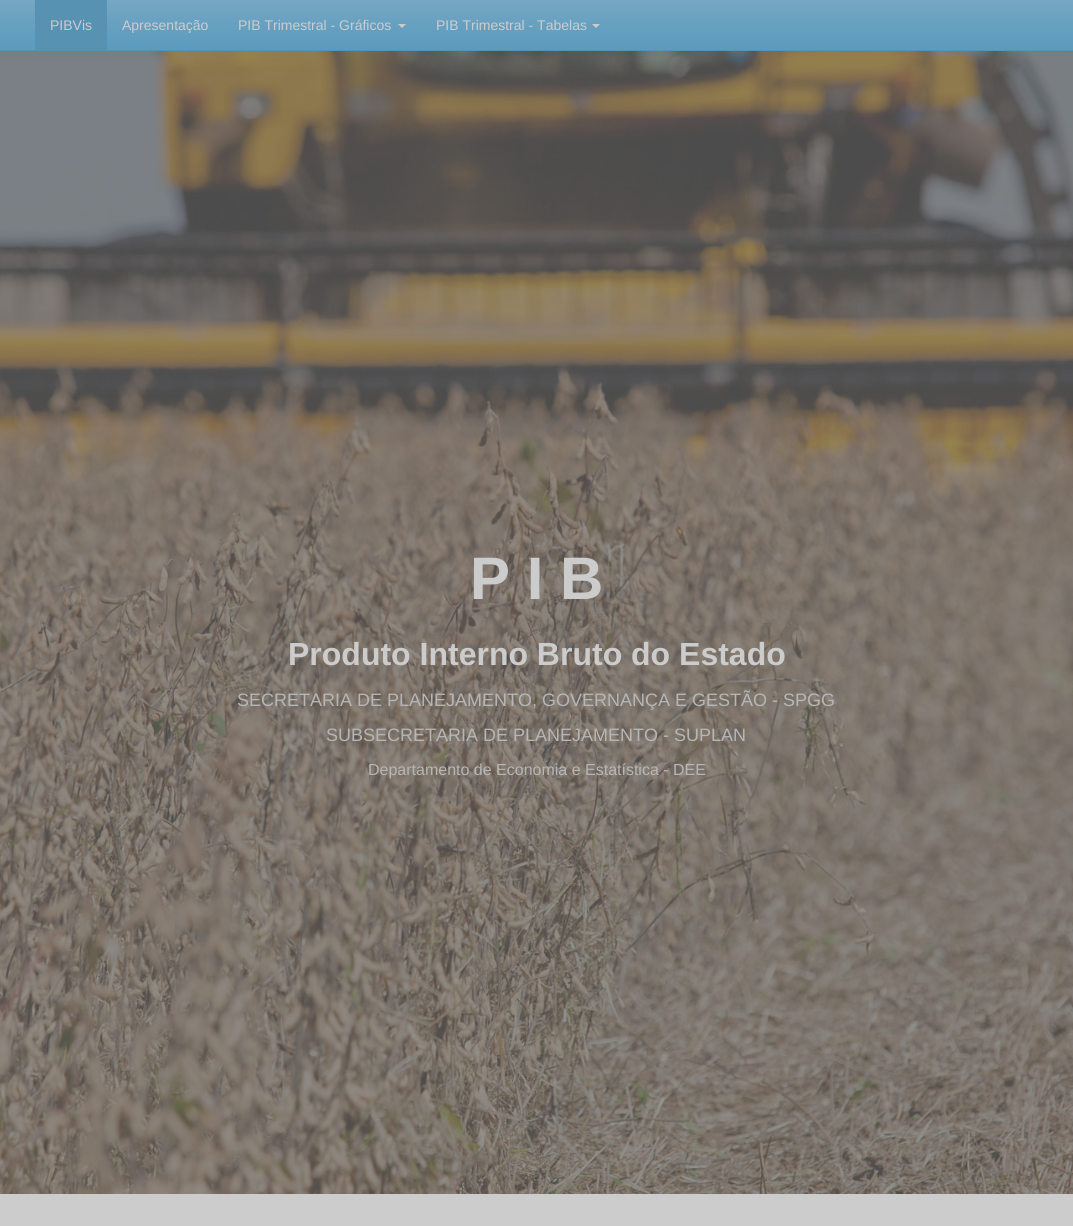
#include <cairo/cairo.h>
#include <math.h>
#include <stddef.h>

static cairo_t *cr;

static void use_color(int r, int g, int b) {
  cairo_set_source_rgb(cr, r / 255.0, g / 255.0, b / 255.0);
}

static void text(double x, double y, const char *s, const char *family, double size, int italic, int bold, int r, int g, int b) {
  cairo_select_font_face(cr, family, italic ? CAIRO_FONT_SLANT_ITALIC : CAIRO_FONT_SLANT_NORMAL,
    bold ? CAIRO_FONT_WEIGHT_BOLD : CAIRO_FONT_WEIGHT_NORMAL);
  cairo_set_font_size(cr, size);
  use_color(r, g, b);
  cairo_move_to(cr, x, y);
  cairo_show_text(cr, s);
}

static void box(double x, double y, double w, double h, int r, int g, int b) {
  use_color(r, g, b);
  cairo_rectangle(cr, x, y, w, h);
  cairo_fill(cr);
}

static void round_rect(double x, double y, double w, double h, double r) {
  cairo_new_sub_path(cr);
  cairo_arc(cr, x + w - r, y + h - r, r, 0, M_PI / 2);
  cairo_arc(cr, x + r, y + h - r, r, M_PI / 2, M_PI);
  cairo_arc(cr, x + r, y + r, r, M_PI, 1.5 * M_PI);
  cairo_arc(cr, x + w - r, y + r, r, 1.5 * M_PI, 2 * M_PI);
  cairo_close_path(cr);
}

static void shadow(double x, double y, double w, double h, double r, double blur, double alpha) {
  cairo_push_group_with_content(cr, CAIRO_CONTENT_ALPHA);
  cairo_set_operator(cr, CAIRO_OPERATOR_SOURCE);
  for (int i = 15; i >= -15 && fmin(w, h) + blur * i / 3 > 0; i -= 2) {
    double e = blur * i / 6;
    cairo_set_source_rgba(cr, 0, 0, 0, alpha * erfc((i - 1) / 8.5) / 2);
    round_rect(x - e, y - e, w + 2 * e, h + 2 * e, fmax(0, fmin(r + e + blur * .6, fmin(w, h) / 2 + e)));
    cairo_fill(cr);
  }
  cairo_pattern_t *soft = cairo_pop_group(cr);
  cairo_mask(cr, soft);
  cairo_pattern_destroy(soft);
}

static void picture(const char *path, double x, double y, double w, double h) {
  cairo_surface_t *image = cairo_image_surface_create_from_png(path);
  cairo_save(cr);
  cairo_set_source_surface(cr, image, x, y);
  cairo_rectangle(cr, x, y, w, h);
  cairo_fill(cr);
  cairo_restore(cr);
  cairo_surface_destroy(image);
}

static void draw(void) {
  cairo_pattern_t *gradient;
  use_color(204, 204, 204);
  cairo_paint(cr);
  picture("img_01.png", 0, 51, 1073, 1143);
  use_color(77, 77, 77);
  shadow(0, 1, 1073, 51, 0, 5, 0.1);
  gradient = cairo_pattern_create_linear(537, 0, 537, 50);
  cairo_pattern_add_color_stop_rgba(gradient, 0, 0.467, 0.655, 0.761, 1);
  cairo_pattern_add_color_stop_rgba(gradient, 0.6, 0.392, 0.624, 0.753, 1);
  cairo_pattern_add_color_stop_rgba(gradient, 1, 0.357, 0.608, 0.749, 1);
  cairo_set_source(cr, gradient);
  cairo_pattern_destroy(gradient);
  cairo_rectangle(cr, 0, 0, 1073, 50);
  cairo_fill(cr);
  box(0, 50, 1073, 1, 88, 146, 179);
  box(35, 0, 72, 50, 88, 146, 179);
  use_color(204, 204, 204);
  cairo_new_path(cr);
  cairo_move_to(cr, 398, 24);
  cairo_line_to(cr, 406, 24);
  cairo_line_to(cr, 402, 28);
  cairo_close_path(cr);
  cairo_fill(cr);
  cairo_new_path(cr);
  cairo_move_to(cr, 592, 24);
  cairo_line_to(cr, 600, 24);
  cairo_line_to(cr, 596, 28);
  cairo_close_path(cr);
  cairo_fill(cr);
  text(50, 30, "PIBVis", "Liberation Sans", 14, 0, 0, 204, 204, 204);
  text(122, 30, "Apresentação", "Liberation Sans", 14, 0, 0, 204, 204, 204);
  text(238, 30, "PIB Trimestral - Gráficos", "Liberation Sans", 14, 0, 0, 204, 204, 204);
  text(436, 30, "PIB Trimestral - Tabelas", "Liberation Sans", 14, 0, 0, 204, 204, 204);
  text(470, 599, "P I B", "Liberation Sans", 60, 0, 1, 204, 204, 204);
  text(288, 665, "Produto Interno Bruto do Estado", "Liberation Sans", 32, 0, 1, 204, 204, 204);
  text(237, 706, "SECRETARIA DE PLANEJAMENTO, GOVERNANÇA E GESTÃO - SPGG", "Liberation Sans", 18, 0, 0, 182, 182, 182);
  text(326, 741, "SUBSECRETARIA DE PLANEJAMENTO - SUPLAN", "Liberation Sans", 18, 0, 0, 182, 182, 182);
  text(368, 775, "Departamento de Economia e Estatística - DEE", "Liberation Sans", 16, 0, 0, 182, 182, 182);
}

int main(void) {
  cairo_surface_t *surface = cairo_image_surface_create(CAIRO_FORMAT_RGB24, 1073, 1226);
  cr = cairo_create(surface);
  cairo_font_options_t *options = cairo_font_options_create();
  cairo_font_options_set_hint_metrics(options, CAIRO_HINT_METRICS_OFF);
  cairo_font_options_set_hint_style(options, CAIRO_HINT_STYLE_NONE);
  cairo_set_font_options(cr, options);
  cairo_set_miter_limit(cr, 4);
  draw();
  cairo_surface_write_to_png(surface, "out.png");
  cairo_font_options_destroy(options);
  cairo_destroy(cr);
  cairo_surface_destroy(surface);
  return 0;
}
